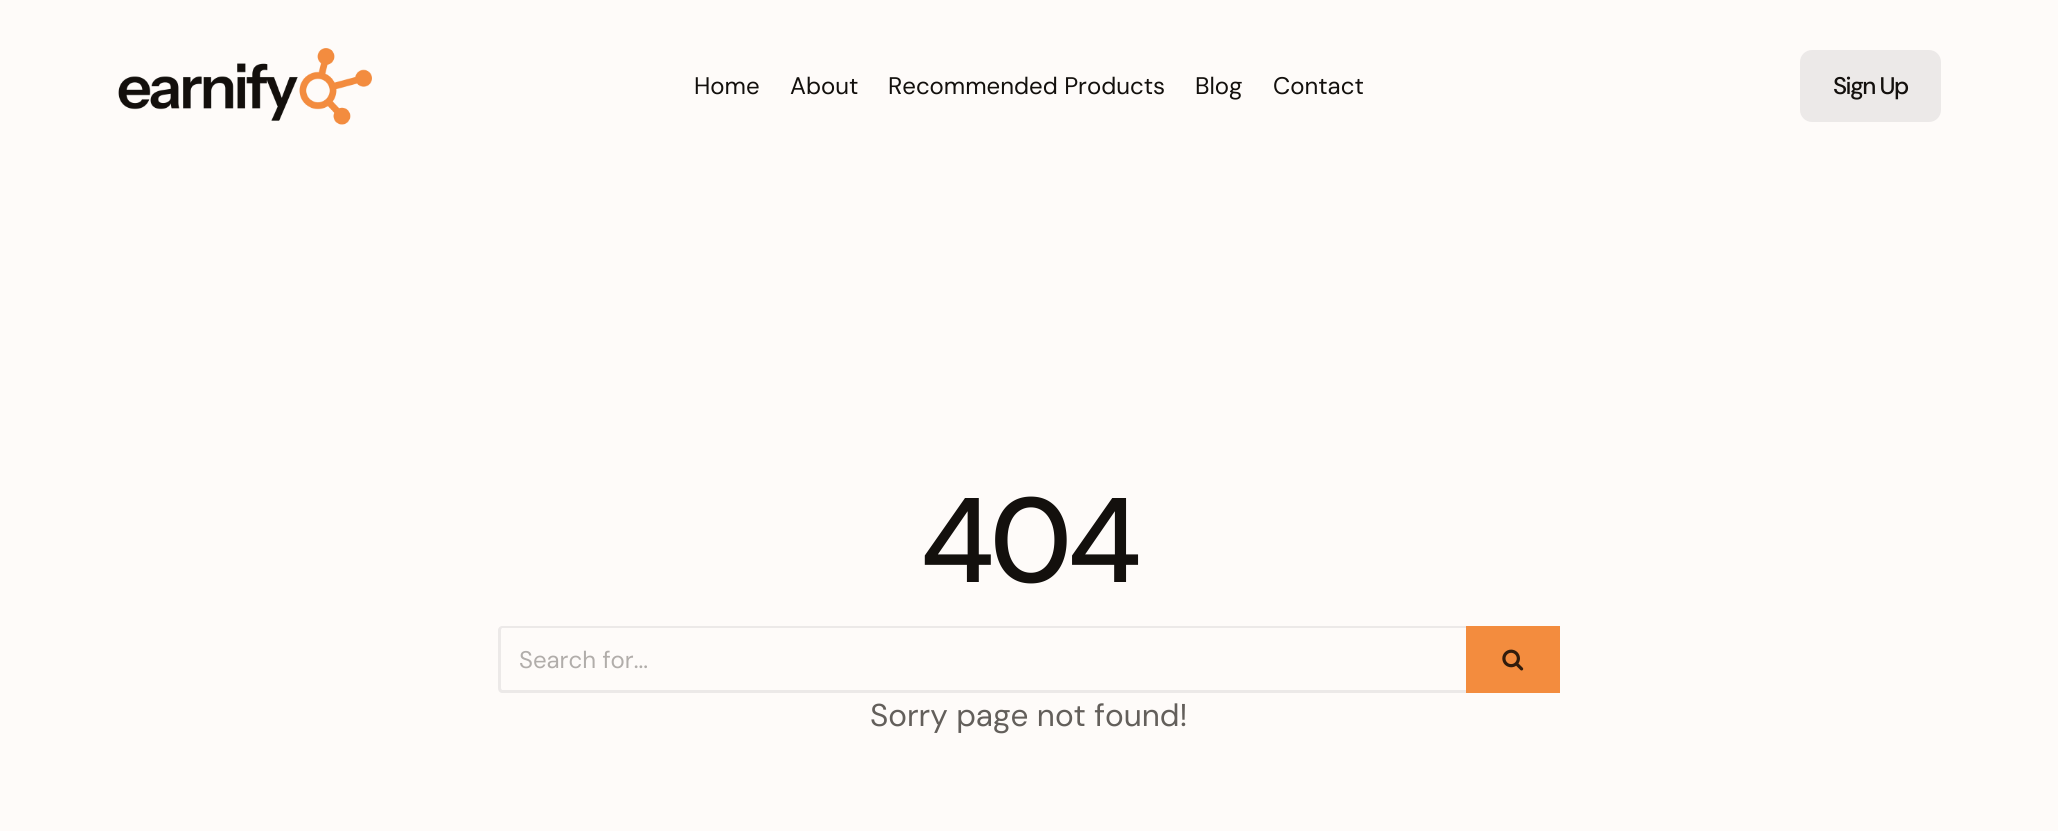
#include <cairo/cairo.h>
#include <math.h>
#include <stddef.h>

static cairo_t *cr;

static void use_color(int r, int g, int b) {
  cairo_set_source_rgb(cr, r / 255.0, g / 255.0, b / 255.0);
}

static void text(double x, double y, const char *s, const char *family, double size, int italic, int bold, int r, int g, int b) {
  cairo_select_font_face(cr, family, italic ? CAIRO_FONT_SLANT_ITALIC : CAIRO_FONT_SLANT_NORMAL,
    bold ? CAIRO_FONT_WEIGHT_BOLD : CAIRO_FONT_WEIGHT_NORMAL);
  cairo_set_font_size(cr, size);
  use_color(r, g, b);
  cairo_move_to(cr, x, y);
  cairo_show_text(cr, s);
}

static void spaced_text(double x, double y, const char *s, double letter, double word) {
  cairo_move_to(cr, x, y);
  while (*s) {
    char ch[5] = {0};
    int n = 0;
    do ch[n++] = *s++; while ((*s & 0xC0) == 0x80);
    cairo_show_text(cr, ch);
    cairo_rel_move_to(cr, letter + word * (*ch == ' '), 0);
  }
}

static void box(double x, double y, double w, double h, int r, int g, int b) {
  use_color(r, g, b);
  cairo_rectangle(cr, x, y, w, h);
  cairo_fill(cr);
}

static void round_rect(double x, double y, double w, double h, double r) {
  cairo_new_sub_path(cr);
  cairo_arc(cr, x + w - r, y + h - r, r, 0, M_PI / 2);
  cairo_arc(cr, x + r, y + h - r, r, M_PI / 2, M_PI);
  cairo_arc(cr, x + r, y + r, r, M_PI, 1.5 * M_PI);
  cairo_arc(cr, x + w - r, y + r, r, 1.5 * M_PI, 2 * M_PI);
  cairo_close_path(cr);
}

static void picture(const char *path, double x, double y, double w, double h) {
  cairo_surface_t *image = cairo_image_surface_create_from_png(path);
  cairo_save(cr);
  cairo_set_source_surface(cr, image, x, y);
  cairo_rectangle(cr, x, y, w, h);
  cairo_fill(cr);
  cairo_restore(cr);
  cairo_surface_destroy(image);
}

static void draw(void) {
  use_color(254, 251, 249);
  cairo_paint(cr);
  picture("img_01.png", 118, 48, 254, 77);
  use_color(236, 233, 232);
  round_rect(1800, 50, 141, 72, 12);
  cairo_fill(cr);
  cairo_set_fill_rule(cr, CAIRO_FILL_RULE_EVEN_ODD);
  cairo_new_path(cr);
  cairo_move_to(cr, 502, 626);
  cairo_line_to(cr, 1466, 626);
  cairo_line_to(cr, 1466, 693);
  cairo_line_to(cr, 502, 693);
  cairo_curve_to(cr, 500, 693, 498, 691, 498, 688);
  cairo_line_to(cr, 498, 630);
  cairo_curve_to(cr, 498, 628, 500, 626, 502, 626);
  cairo_close_path(cr);
  cairo_move_to(cr, 502, 628);
  cairo_line_to(cr, 1466, 628);
  cairo_line_to(cr, 1466, 690);
  cairo_line_to(cr, 502, 690);
  cairo_curve_to(cr, 502, 690, 501, 689, 501, 688);
  cairo_line_to(cr, 501, 630);
  cairo_curve_to(cr, 501, 629, 502, 628, 502, 628);
  cairo_close_path(cr);
  cairo_fill(cr);
  box(1466, 626, 94, 67, 243, 140, 62);
  picture("img_02.png", 1502, 649, 22, 22);
  text(694, 94, "Home", "DM Sans", 24, 0, 0, 19, 16, 13);
  text(790, 94, "About", "DM Sans", 24, 0, 0, 19, 16, 13);
  text(888, 94, "Recommended Products", "DM Sans", 24, 0, 0, 19, 16, 13);
  text(1195, 94, "Blog", "DM Sans", 24, 0, 0, 19, 16, 13);
  text(1273, 94, "Contact", "DM Sans", 24, 0, 0, 19, 16, 13);
  cairo_select_font_face(cr, "DM Sans Medium", CAIRO_FONT_SLANT_NORMAL, CAIRO_FONT_WEIGHT_NORMAL);
  spaced_text(1833, 94, "Sign Up", -1.5, 0);
  cairo_set_font_size(cr, 120);
  spaced_text(920, 582, "404", -5, 0);
  text(519, 668, "Search for...", "DM Sans", 24, 0, 0, 177, 173, 170);
  text(870, 726, "Sorry page not found!", "DM Sans", 31.5, 0, 0, 99, 95, 91);
}

int main(void) {
  cairo_surface_t *surface = cairo_image_surface_create(CAIRO_FORMAT_RGB24, 2058, 831);
  cr = cairo_create(surface);
  cairo_font_options_t *options = cairo_font_options_create();
  cairo_font_options_set_hint_metrics(options, CAIRO_HINT_METRICS_OFF);
  cairo_font_options_set_hint_style(options, CAIRO_HINT_STYLE_NONE);
  cairo_set_font_options(cr, options);
  cairo_set_miter_limit(cr, 4);
  draw();
  cairo_surface_write_to_png(surface, "out.png");
  cairo_font_options_destroy(options);
  cairo_destroy(cr);
  cairo_surface_destroy(surface);
  return 0;
}
